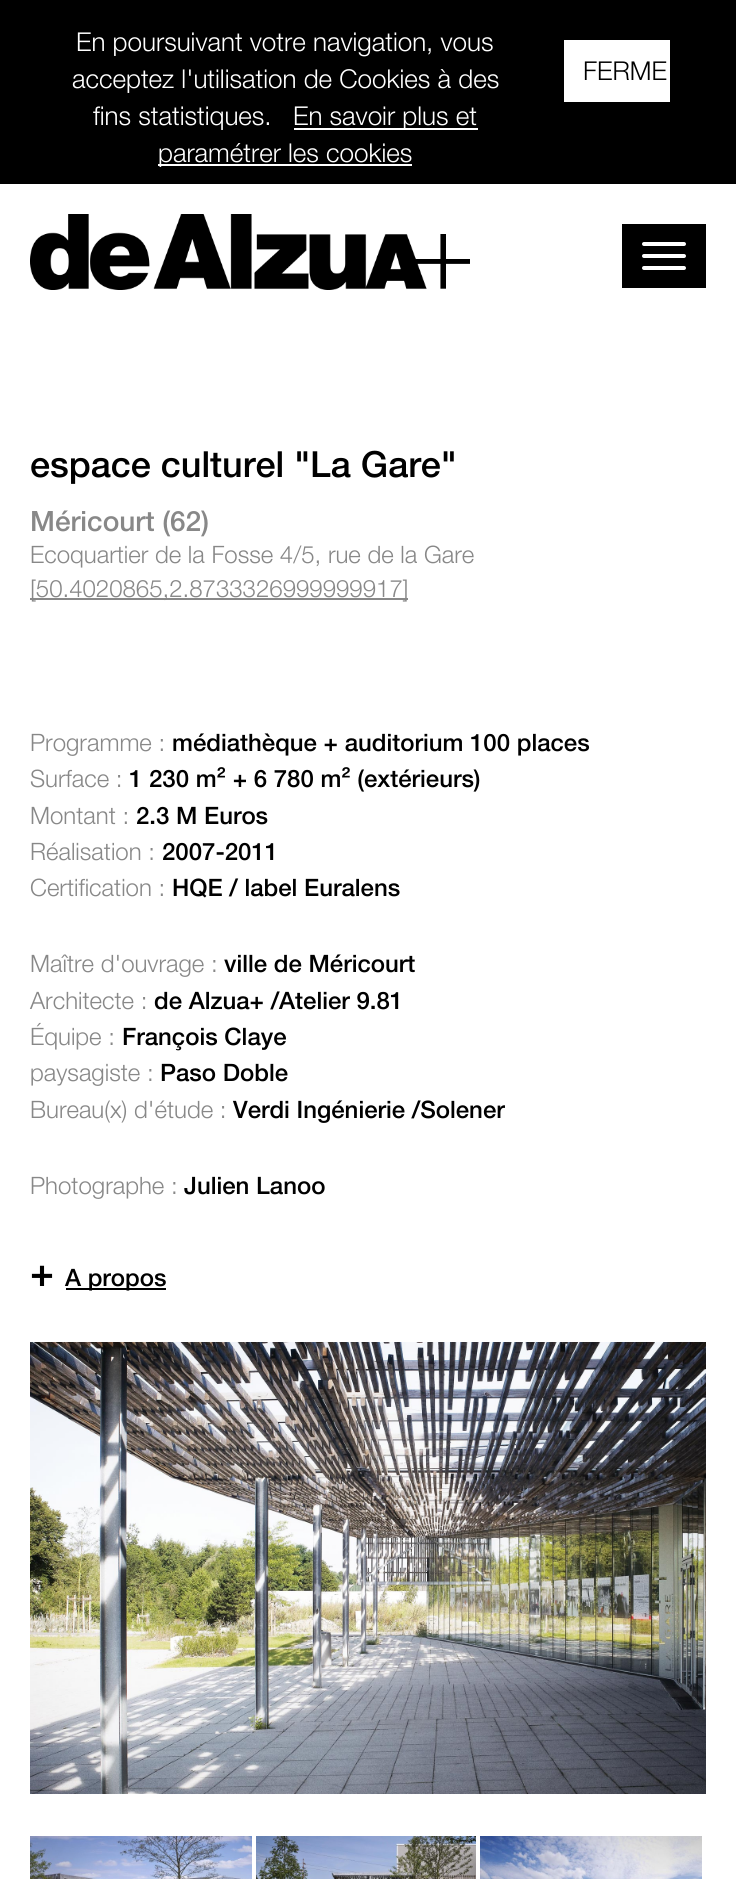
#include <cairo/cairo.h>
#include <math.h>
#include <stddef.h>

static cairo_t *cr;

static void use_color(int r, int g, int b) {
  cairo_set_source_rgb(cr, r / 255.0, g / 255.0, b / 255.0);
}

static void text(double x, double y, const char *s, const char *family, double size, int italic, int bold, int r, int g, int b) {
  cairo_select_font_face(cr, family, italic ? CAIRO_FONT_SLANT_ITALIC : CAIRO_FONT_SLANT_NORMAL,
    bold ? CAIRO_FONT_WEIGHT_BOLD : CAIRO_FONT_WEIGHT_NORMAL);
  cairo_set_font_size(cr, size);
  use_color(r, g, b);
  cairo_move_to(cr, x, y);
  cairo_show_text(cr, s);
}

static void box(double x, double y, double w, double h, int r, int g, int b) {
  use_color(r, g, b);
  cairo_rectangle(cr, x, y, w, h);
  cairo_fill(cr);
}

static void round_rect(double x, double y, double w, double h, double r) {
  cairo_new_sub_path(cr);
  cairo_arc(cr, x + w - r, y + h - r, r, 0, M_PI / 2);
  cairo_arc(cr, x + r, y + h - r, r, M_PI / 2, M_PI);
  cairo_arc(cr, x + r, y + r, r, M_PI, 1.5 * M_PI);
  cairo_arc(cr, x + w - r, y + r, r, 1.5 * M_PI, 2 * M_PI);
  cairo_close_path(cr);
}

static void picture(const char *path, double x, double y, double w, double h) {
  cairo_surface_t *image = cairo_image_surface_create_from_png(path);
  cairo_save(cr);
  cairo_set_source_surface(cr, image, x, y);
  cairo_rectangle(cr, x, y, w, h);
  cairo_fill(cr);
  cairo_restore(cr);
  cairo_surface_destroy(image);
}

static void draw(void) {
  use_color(255, 255, 255);
  cairo_paint(cr);
  box(0, 0, 736, 184, 0, 0, 0);
  box(294, 128, 184, 2, 255, 255, 255);
  box(158, 164, 254, 2, 255, 255, 255);
  box(564, 40, 106, 62, 255, 255, 255);
  picture("img_01.png", 30, 214, 440, 76);
  box(622, 224, 84, 64, 0, 0, 0);
  use_color(255, 255, 255);
  round_rect(642, 242, 44, 4, 2);
  cairo_fill(cr);
  round_rect(642, 254, 44, 4, 2);
  cairo_fill(cr);
  round_rect(642, 266, 44, 4, 2);
  cairo_fill(cr);
  box(30, 598, 378, 2, 136, 136, 136);
  box(66, 1288, 100, 2, 0, 0, 0);
  picture("img_02.png", 30, 1342, 676, 452);
  picture("img_03.png", 30, 1836, 222, 43);
  picture("img_04.png", 256, 1836, 220, 43);
  picture("img_05.png", 480, 1836, 222, 43);
  text(76, 51, "En poursuivant votre navigation, vous", "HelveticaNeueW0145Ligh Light", 26, 0, 0, 255, 255, 255);
  text(72, 88, "acceptez l'utilisation de Cookies à des", "HelveticaNeueW0145Ligh Light", 26, 0, 0, 255, 255, 255);
  text(93, 125, "fins statistiques.", "HelveticaNeueW0145Ligh Light", 26, 0, 0, 255, 255, 255);
  text(293, 125, "En savoir plus et", "HelveticaNeueW0145Ligh Light", 26, 0, 0, 255, 255, 255);
  text(158, 162, "paramétrer les cookies", "HelveticaNeueW0145Ligh Light", 26, 0, 0, 255, 255, 255);
  text(583, 80, "FERME", "HelveticaNeueW0145Ligh Light", 26, 0, 0, 0, 0, 0);
  text(30, 477, "espace culturel \"La Gare\"", "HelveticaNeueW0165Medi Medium", 36, 0, 0, 0, 0, 0);
  text(30, 531, "Méricourt (62)", "HelveticaNeueW0165Medi Medium", 28, 0, 0, 136, 136, 136);
  text(30, 563, "Ecoquartier de la Fosse 4/5, rue de la Gare", "HelveticaNeueW0145Ligh Light", 24, 0, 0, 136, 136, 136);
  text(30, 597, "[50.4020865,2.8733326999999917]", "HelveticaNeueW0145Ligh Light", 24, 0, 0, 136, 136, 136);
  text(30, 751, "Programme :", "HelveticaNeueW0145Ligh Light", 24, 0, 0, 136, 136, 136);
  text(172, 751, "médiathèque + auditorium 100 places", "HelveticaNeueW0165Medi Medium", 24, 0, 0, 0, 0, 0);
  text(30, 787, "Surface :", "HelveticaNeueW0145Ligh Light", 24, 0, 0, 136, 136, 136);
  text(129, 787, "1 230 m² + 6 780 m² (extérieurs)", "HelveticaNeueW0165Medi Medium", 24, 0, 0, 0, 0, 0);
  text(30, 824, "Montant :", "HelveticaNeueW0145Ligh Light", 24, 0, 0, 136, 136, 136);
  text(136, 824, "2.3 M Euros", "HelveticaNeueW0165Medi Medium", 24, 0, 0, 0, 0, 0);
  text(30, 860, "Réalisation :", "HelveticaNeueW0145Ligh Light", 24, 0, 0, 136, 136, 136);
  text(162, 860, "2007-2011", "HelveticaNeueW0165Medi Medium", 24, 0, 0, 0, 0, 0);
  text(30, 896, "Certification :", "HelveticaNeueW0145Ligh Light", 24, 0, 0, 136, 136, 136);
  text(172, 896, "HQE / label Euralens", "HelveticaNeueW0165Medi Medium", 24, 0, 0, 0, 0, 0);
  text(30, 972, "Maître d'ouvrage :", "HelveticaNeueW0145Ligh Light", 24, 0, 0, 136, 136, 136);
  text(224, 972, "ville de Méricourt", "HelveticaNeueW0165Medi Medium", 24, 0, 0, 0, 0, 0);
  text(30, 1009, "Architecte :", "HelveticaNeueW0145Ligh Light", 24, 0, 0, 136, 136, 136);
  text(154, 1009, "de Alzua+ /Atelier 9.81", "HelveticaNeueW0165Medi Medium", 24, 0, 0, 0, 0, 0);
  text(30, 1045, "Équipe :", "HelveticaNeueW0145Ligh Light", 24, 0, 0, 136, 136, 136);
  text(122, 1045, "François Claye", "HelveticaNeueW0165Medi Medium", 24, 0, 0, 0, 0, 0);
  text(30, 1081, "paysagiste :", "HelveticaNeueW0145Ligh Light", 24, 0, 0, 136, 136, 136);
  text(160, 1081, "Paso Doble", "HelveticaNeueW0165Medi Medium", 24, 0, 0, 0, 0, 0);
  text(30, 1118, "Bureau(x) d'étude :", "HelveticaNeueW0145Ligh Light", 24, 0, 0, 136, 136, 136);
  text(233, 1118, "Verdi Ingénierie /Solener", "HelveticaNeueW0165Medi Medium", 24, 0, 0, 0, 0, 0);
  text(30, 1194, "Photographe :", "HelveticaNeueW0145Ligh Light", 24, 0, 0, 136, 136, 136);
  text(184, 1194, "Julien Lanoo", "HelveticaNeueW0165Medi Medium", 24, 0, 0, 0, 0, 0);
  text(30, 1286, "+", "HelveticaNeueW0165Medi Medium", 40, 0, 0, 0, 0, 0);
  text(65, 1286, "A propos", "HelveticaNeueW0165Medi Medium", 24, 0, 0, 0, 0, 0);
}

int main(void) {
  cairo_surface_t *surface = cairo_image_surface_create(CAIRO_FORMAT_RGB24, 736, 1879);
  cr = cairo_create(surface);
  cairo_font_options_t *options = cairo_font_options_create();
  cairo_font_options_set_hint_metrics(options, CAIRO_HINT_METRICS_OFF);
  cairo_font_options_set_hint_style(options, CAIRO_HINT_STYLE_NONE);
  cairo_set_font_options(cr, options);
  cairo_set_miter_limit(cr, 4);
  draw();
  cairo_surface_write_to_png(surface, "out.png");
  cairo_font_options_destroy(options);
  cairo_destroy(cr);
  cairo_surface_destroy(surface);
  return 0;
}
